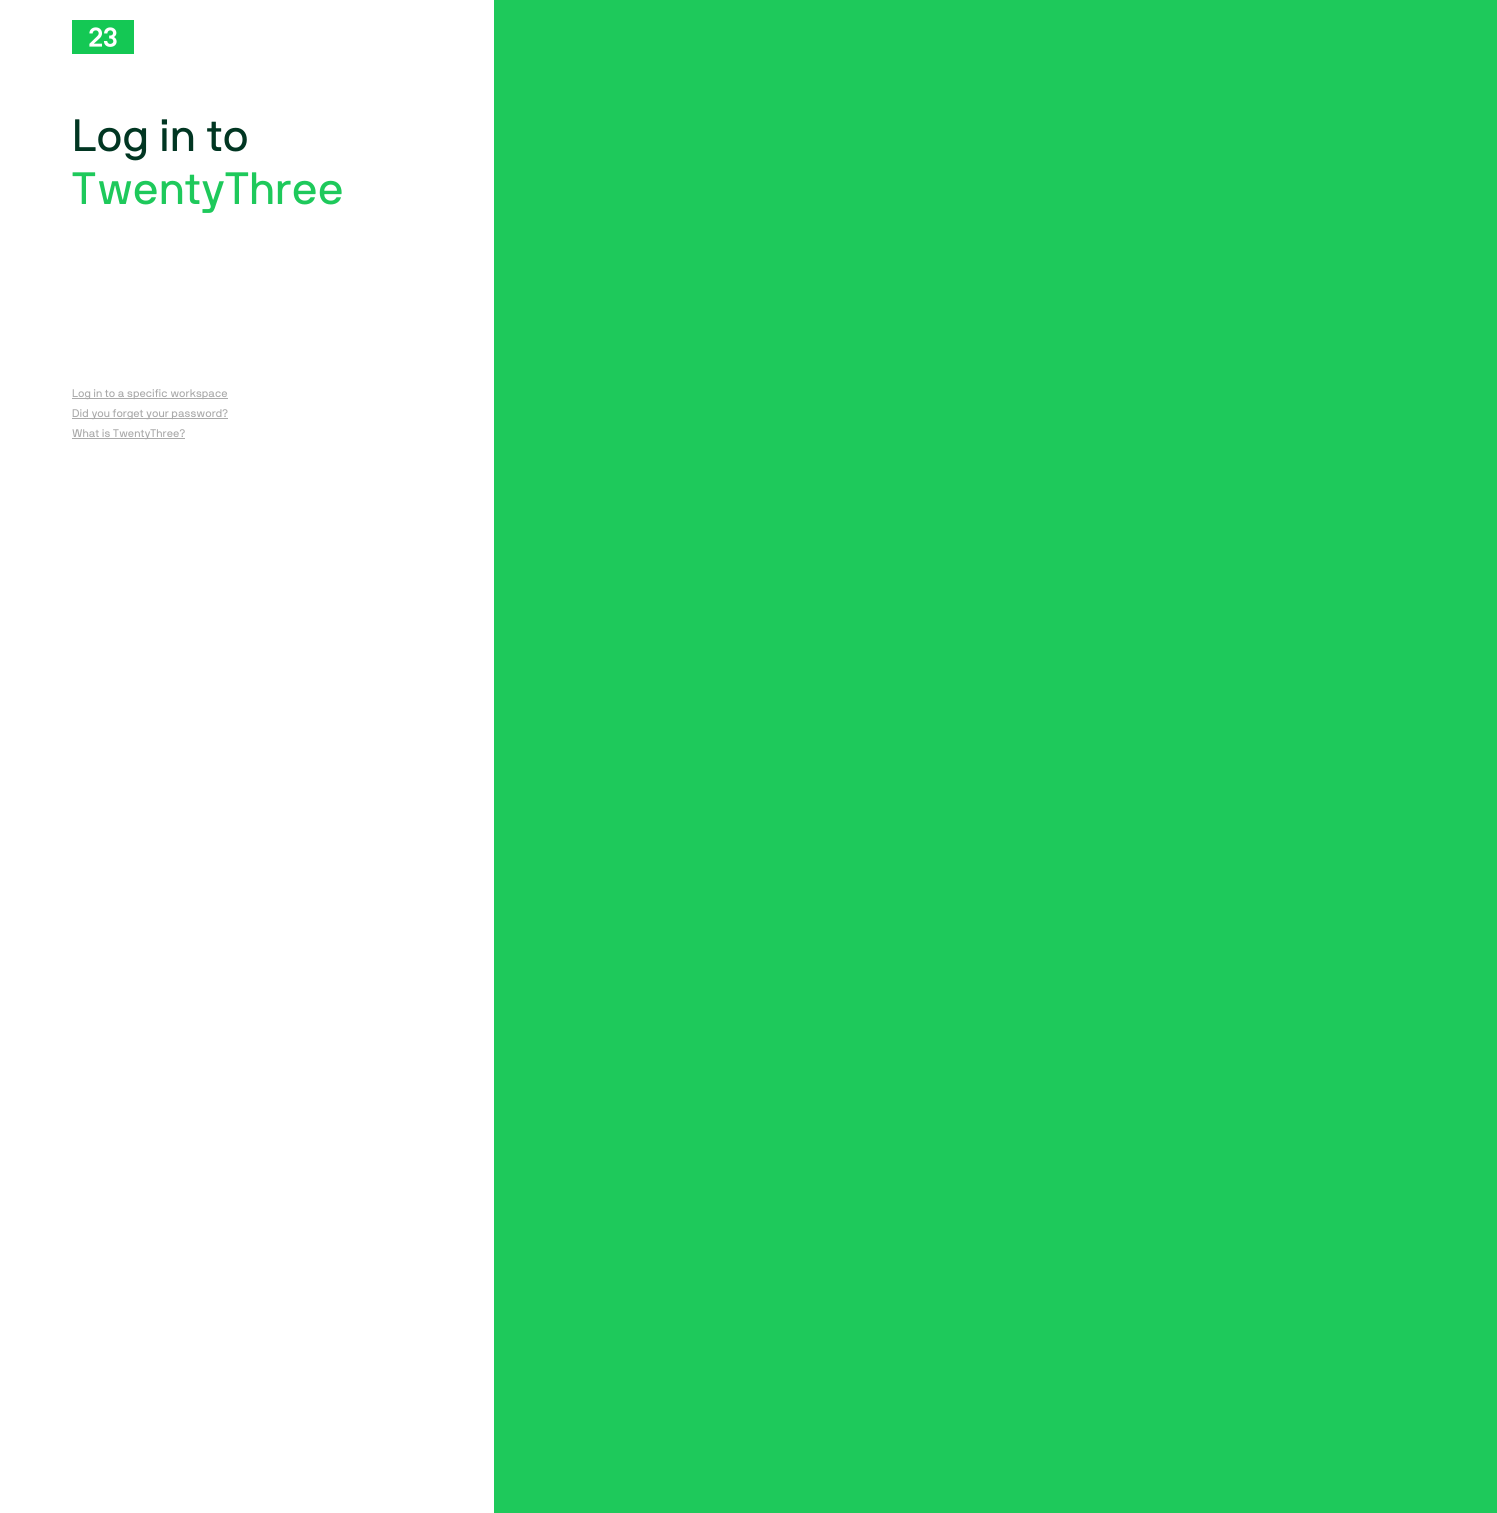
#include <cairo/cairo.h>
#include <math.h>
#include <stddef.h>

static cairo_t *cr;

static void use_color(int r, int g, int b) {
  cairo_set_source_rgb(cr, r / 255.0, g / 255.0, b / 255.0);
}

static void text(double x, double y, const char *s, const char *family, double size, int italic, int bold, int r, int g, int b) {
  cairo_select_font_face(cr, family, italic ? CAIRO_FONT_SLANT_ITALIC : CAIRO_FONT_SLANT_NORMAL,
    bold ? CAIRO_FONT_WEIGHT_BOLD : CAIRO_FONT_WEIGHT_NORMAL);
  cairo_set_font_size(cr, size);
  use_color(r, g, b);
  cairo_move_to(cr, x, y);
  cairo_show_text(cr, s);
}

static void box(double x, double y, double w, double h, int r, int g, int b) {
  use_color(r, g, b);
  cairo_rectangle(cr, x, y, w, h);
  cairo_fill(cr);
}

static void picture(const char *path, double x, double y, double w, double h) {
  cairo_surface_t *image = cairo_image_surface_create_from_png(path);
  cairo_save(cr);
  cairo_set_source_surface(cr, image, x, y);
  cairo_rectangle(cr, x, y, w, h);
  cairo_fill(cr);
  cairo_restore(cr);
  cairo_surface_destroy(image);
}

static void draw(void) {
  use_color(255, 255, 255);
  cairo_paint(cr);
  picture("img_01.png", 72, 20, 62, 34);
  box(72, 398, 156, 1, 170, 170, 170);
  box(72, 418, 156, 1, 170, 170, 170);
  box(72, 438, 113, 1, 170, 170, 170);
  box(494, 0, 1003, 1513, 30, 201, 91);
  text(72, 151, "Log in to", "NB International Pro", 45, 0, 0, 1, 54, 34);
  text(72, 204, "TwentyThree", "NB International Pro", 45, 0, 0, 30, 201, 91);
  text(72, 397, "Log in to a specific workspace", "NB International Pro", 11, 0, 0, 170, 170, 170);
  text(72, 417, "Did you forget your password?", "NB International Pro", 11, 0, 0, 170, 170, 170);
  text(72, 437, "What is TwentyThree?", "NB International Pro", 11, 0, 0, 170, 170, 170);
}

int main(void) {
  cairo_surface_t *surface = cairo_image_surface_create(CAIRO_FORMAT_RGB24, 1497, 1513);
  cr = cairo_create(surface);
  cairo_font_options_t *options = cairo_font_options_create();
  cairo_font_options_set_hint_metrics(options, CAIRO_HINT_METRICS_OFF);
  cairo_font_options_set_hint_style(options, CAIRO_HINT_STYLE_NONE);
  cairo_set_font_options(cr, options);
  cairo_set_miter_limit(cr, 4);
  draw();
  cairo_surface_write_to_png(surface, "out.png");
  cairo_font_options_destroy(options);
  cairo_destroy(cr);
  cairo_surface_destroy(surface);
  return 0;
}
